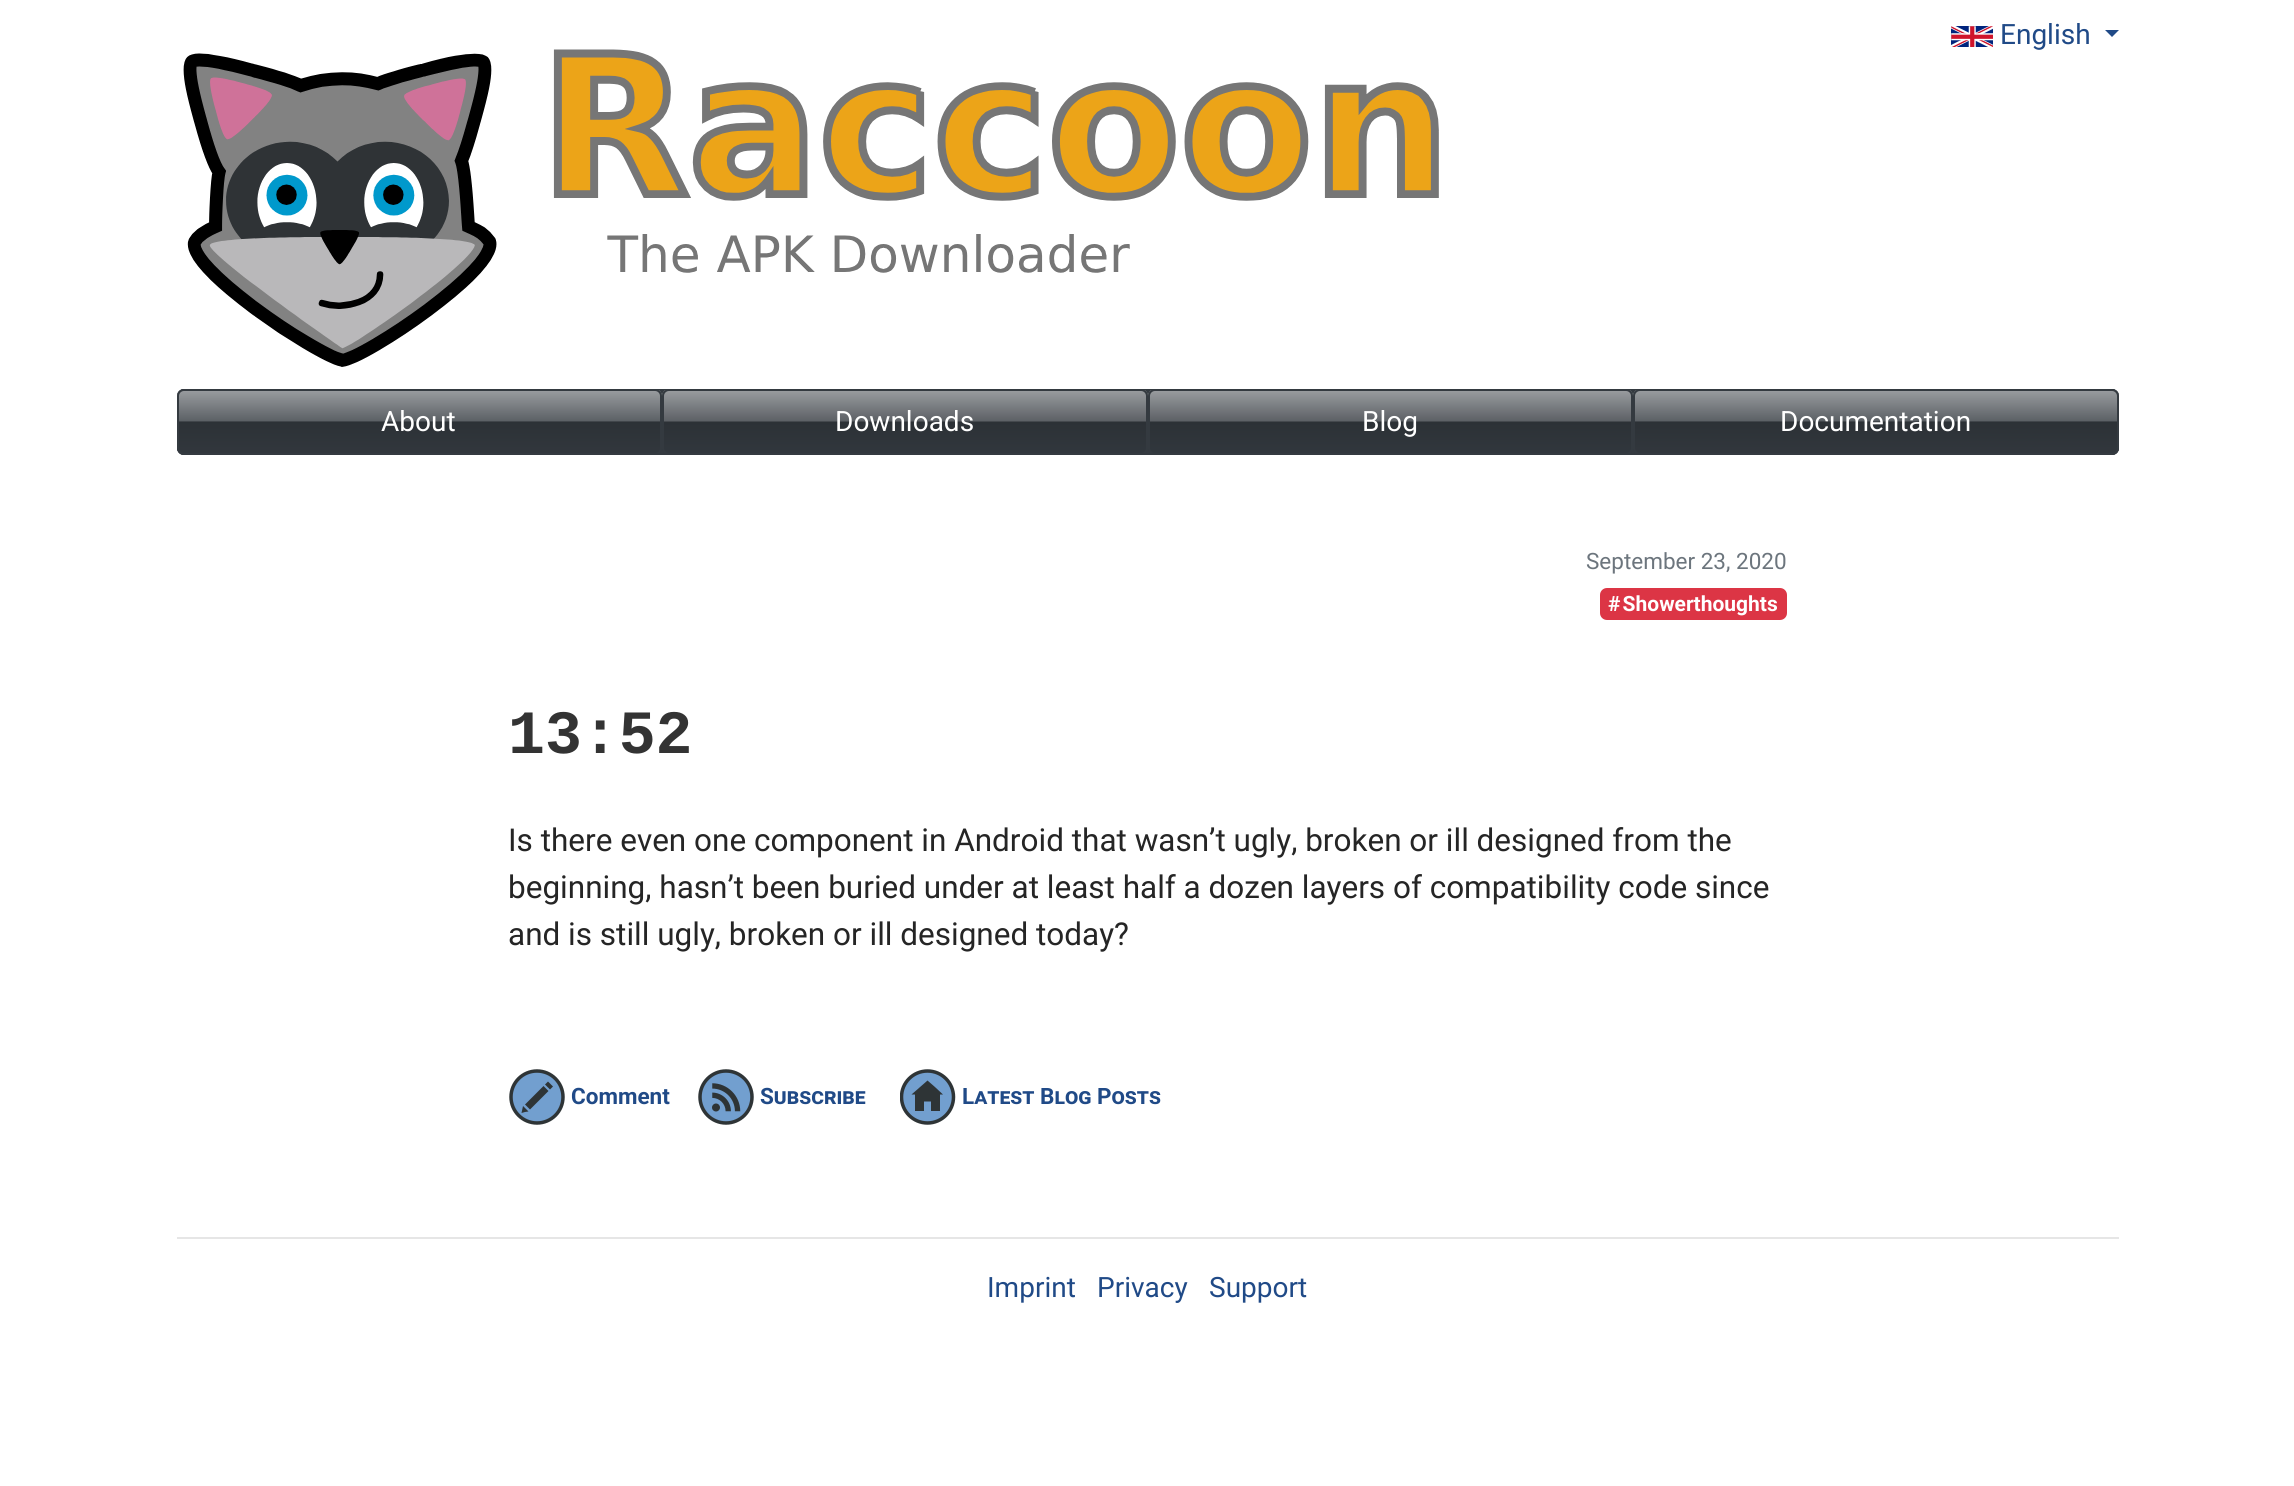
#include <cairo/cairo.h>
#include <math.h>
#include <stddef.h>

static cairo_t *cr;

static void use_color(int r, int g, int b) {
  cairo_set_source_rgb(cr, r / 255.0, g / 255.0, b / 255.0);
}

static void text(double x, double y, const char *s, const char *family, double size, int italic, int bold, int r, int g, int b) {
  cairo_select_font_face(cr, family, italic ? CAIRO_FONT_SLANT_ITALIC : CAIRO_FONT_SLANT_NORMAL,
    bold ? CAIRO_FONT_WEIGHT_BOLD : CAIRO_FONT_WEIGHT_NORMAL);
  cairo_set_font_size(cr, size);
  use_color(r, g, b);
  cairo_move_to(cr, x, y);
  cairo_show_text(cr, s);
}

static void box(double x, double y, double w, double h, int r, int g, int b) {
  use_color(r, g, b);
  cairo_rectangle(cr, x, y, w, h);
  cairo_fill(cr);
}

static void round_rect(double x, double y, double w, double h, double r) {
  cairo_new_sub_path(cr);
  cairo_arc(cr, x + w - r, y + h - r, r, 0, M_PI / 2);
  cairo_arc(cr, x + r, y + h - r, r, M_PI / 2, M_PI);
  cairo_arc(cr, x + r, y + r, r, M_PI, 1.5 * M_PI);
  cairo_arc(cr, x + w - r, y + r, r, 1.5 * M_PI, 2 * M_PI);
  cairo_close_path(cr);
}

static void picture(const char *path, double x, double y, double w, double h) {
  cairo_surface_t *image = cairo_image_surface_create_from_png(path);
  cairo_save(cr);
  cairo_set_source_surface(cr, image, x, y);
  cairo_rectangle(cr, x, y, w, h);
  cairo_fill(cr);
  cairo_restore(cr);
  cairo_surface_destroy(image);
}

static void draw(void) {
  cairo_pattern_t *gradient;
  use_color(255, 255, 255);
  cairo_paint(cr);
  picture("img_01.png", 1951, 26, 42, 21);
  use_color(32, 74, 135);
  cairo_new_path(cr);
  cairo_move_to(cr, 2105, 30);
  cairo_line_to(cr, 2119, 30);
  cairo_line_to(cr, 2112, 37);
  cairo_close_path(cr);
  cairo_fill(cr);
  picture("img_02.png", 183, 49, 1256, 318);
  use_color(52, 58, 64);
  round_rect(177, 389, 1942, 66, 7);
  cairo_fill(cr);
  round_rect(177, 389, 485, 66, 7);
  cairo_fill(cr);
  cairo_save(cr);
  round_rect(177, 389, 485, 66, 7);
  cairo_clip(cr);
  gradient = cairo_pattern_create_linear(419, 390, 419, 453);
  cairo_pattern_add_color_stop_rgba(gradient, 0, 1, 1, 1, 0.5);
  cairo_pattern_add_color_stop_rgba(gradient, 0.49, 1, 1, 1, 0.2);
  cairo_pattern_add_color_stop_rgba(gradient, 0.51, 0, 0, 0, 0.15);
  cairo_pattern_add_color_stop_rgba(gradient, 1, 0, 0, 0, 0.05);
  cairo_set_source(cr, gradient);
  cairo_pattern_destroy(gradient);
  cairo_rectangle(cr, 177, 390, 485, 63);
  cairo_fill(cr);
  cairo_restore(cr);
  round_rect(178, 390, 483, 64, 6);
  cairo_stroke(cr);
  cairo_save(cr);
  round_rect(662, 389, 486, 66, 7);
  cairo_clip(cr);
  gradient = cairo_pattern_create_linear(905, 390, 905, 453);
  cairo_pattern_add_color_stop_rgba(gradient, 0, 0.604, 0.616, 0.627, 1);
  cairo_pattern_add_color_stop_rgba(gradient, 0.49, 0.365, 0.38, 0.4, 1);
  cairo_pattern_add_color_stop_rgba(gradient, 0.51, 0.173, 0.192, 0.212, 1);
  cairo_pattern_add_color_stop_rgba(gradient, 1, 0.192, 0.216, 0.239, 1);
  cairo_set_source(cr, gradient);
  cairo_pattern_destroy(gradient);
  cairo_rectangle(cr, 662, 390, 486, 63);
  cairo_fill(cr);
  cairo_restore(cr);
  round_rect(663, 390, 484, 64, 6);
  cairo_stroke(cr);
  cairo_save(cr);
  round_rect(1148, 389, 485, 66, 7);
  cairo_clip(cr);
  gradient = cairo_pattern_create_linear(1390, 390, 1390, 453);
  cairo_pattern_add_color_stop_rgba(gradient, 0, 0.604, 0.616, 0.627, 1);
  cairo_pattern_add_color_stop_rgba(gradient, 0.49, 0.365, 0.38, 0.4, 1);
  cairo_pattern_add_color_stop_rgba(gradient, 0.51, 0.173, 0.192, 0.212, 1);
  cairo_pattern_add_color_stop_rgba(gradient, 1, 0.192, 0.216, 0.239, 1);
  cairo_set_source(cr, gradient);
  cairo_pattern_destroy(gradient);
  cairo_rectangle(cr, 1148, 390, 485, 63);
  cairo_fill(cr);
  cairo_restore(cr);
  round_rect(1149, 390, 483, 64, 6);
  cairo_stroke(cr);
  round_rect(1633, 389, 486, 66, 7);
  cairo_fill(cr);
  cairo_save(cr);
  round_rect(1633, 389, 486, 66, 7);
  cairo_clip(cr);
  gradient = cairo_pattern_create_linear(1876, 390, 1876, 453);
  cairo_pattern_add_color_stop_rgba(gradient, 0, 1, 1, 1, 0.5);
  cairo_pattern_add_color_stop_rgba(gradient, 0.49, 1, 1, 1, 0.2);
  cairo_pattern_add_color_stop_rgba(gradient, 0.51, 0, 0, 0, 0.15);
  cairo_pattern_add_color_stop_rgba(gradient, 1, 0, 0, 0, 0.05);
  cairo_set_source(cr, gradient);
  cairo_pattern_destroy(gradient);
  cairo_rectangle(cr, 1633, 390, 486, 63);
  cairo_fill(cr);
  cairo_restore(cr);
  round_rect(1634, 390, 484, 64, 6);
  cairo_stroke(cr);
  use_color(220, 53, 69);
  round_rect(1600, 588, 187, 32, 7);
  cairo_fill(cr);
  use_color(114, 159, 207);
  cairo_arc(cr, 537, 1097, 26, 0, 2 * M_PI);
  cairo_fill_preserve(cr);
  use_color(46, 52, 54);
  cairo_set_line_width(cr, 3.5);
  cairo_stroke(cr);
  cairo_new_path(cr);
  cairo_move_to(cr, 543.5, 1086);
  cairo_line_to(cr, 548.5, 1091);
  cairo_line_to(cr, 530, 1109.5);
  cairo_line_to(cr, 525, 1104.5);
  cairo_close_path(cr);
  cairo_fill(cr);
  cairo_new_path(cr);
  cairo_move_to(cr, 521.5, 1113);
  cairo_line_to(cr, 523, 1106);
  cairo_line_to(cr, 528.5, 1111.5);
  cairo_line_to(cr, 525, 1112);
  cairo_close_path(cr);
  cairo_move_to(cr, 548, 1081.5);
  cairo_line_to(cr, 553, 1086.5);
  cairo_line_to(cr, 550, 1089.5);
  cairo_line_to(cr, 545, 1084.5);
  cairo_close_path(cr);
  cairo_fill(cr);
  picture("img_03.png", 698, 1069, 56, 56);
  use_color(114, 159, 207);
  cairo_arc(cr, 927.5, 1097, 26, 0, 2 * M_PI);
  cairo_fill(cr);
  cairo_save(cr);
  cairo_rectangle(cr, 900, 1069, 56, 56);
  cairo_clip(cr);
  cairo_arc(cr, 927.5, 1097, 26, 0, 2 * M_PI);
  use_color(46, 52, 54);
  cairo_stroke(cr);
  cairo_restore(cr);
  use_color(46, 52, 54);
  cairo_new_path(cr);
  cairo_move_to(cr, 915, 1093);
  cairo_line_to(cr, 915, 1111);
  cairo_line_to(cr, 924, 1111);
  cairo_line_to(cr, 924, 1101.5);
  cairo_line_to(cr, 931, 1101.5);
  cairo_line_to(cr, 931, 1111);
  cairo_line_to(cr, 940, 1111);
  cairo_line_to(cr, 940, 1093);
  cairo_close_path(cr);
  cairo_fill(cr);
  cairo_new_path(cr);
  cairo_move_to(cr, 943, 1094.5);
  cairo_line_to(cr, 911.5, 1094.5);
  cairo_line_to(cr, 927.5, 1080.5);
  cairo_line_to(cr, 935.5, 1087.5);
  cairo_close_path(cr);
  cairo_fill(cr);
  box(177, 1237, 1942, 2, 230, 230, 230);
  text(2000, 44, "English", "Roboto", 28, 0, 0, 32, 74, 135);
  text(381, 431, "About", "Roboto", 28, 0, 0, 255, 255, 255);
  text(835, 431, "Downloads", "Roboto", 28, 0, 0, 255, 255, 255);
  text(1362, 431, "Blog", "Roboto", 28, 0, 0, 255, 255, 255);
  text(1780, 431, "Documentation", "Roboto", 28, 0, 0, 255, 255, 255);
  text(1586, 569, "September 23, 2020", "Roboto", 22.5, 0, 0, 108, 117, 125);
  text(1608, 611, "# Showerthoughts", "Roboto", 21, 0, 1, 255, 255, 255);
  text(508, 753, "13:52", "Liberation Mono", 61.5, 0, 1, 51, 51, 51);
  text(508, 851, "Is there even one component in Android that wasn’t ugly, broken or ill designed from the", "Roboto", 31.5, 0, 0, 37, 37, 37);
  text(508, 898, "beginning, hasn’t been buried under at least half a dozen layers of compatibility code since", "Roboto", 31.5, 0, 0, 37, 37, 37);
  text(508, 945, "and is still ugly, broken or ill designed today?", "Roboto", 31.5, 0, 0, 37, 37, 37);
  text(571, 1104, "Comment", "Roboto", 22.5, 0, 1, 32, 74, 135);
  text(760, 1104, "Subscribe", "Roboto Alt", 22.5, 0, 1, 32, 74, 135);
  text(962, 1104, "Latest Blog Posts", "Roboto Alt", 22.5, 0, 1, 32, 74, 135);
  text(987, 1297, "Imprint", "Roboto", 28, 0, 0, 32, 74, 135);
  text(1097, 1297, "Privacy", "Roboto", 28, 0, 0, 32, 74, 135);
  text(1209, 1297, "Support", "Roboto", 28, 0, 0, 32, 74, 135);
}

int main(void) {
  cairo_surface_t *surface = cairo_image_surface_create(CAIRO_FORMAT_RGB24, 2294, 1486);
  cr = cairo_create(surface);
  cairo_font_options_t *options = cairo_font_options_create();
  cairo_font_options_set_hint_metrics(options, CAIRO_HINT_METRICS_OFF);
  cairo_font_options_set_hint_style(options, CAIRO_HINT_STYLE_NONE);
  cairo_set_font_options(cr, options);
  cairo_set_miter_limit(cr, 4);
  draw();
  cairo_surface_write_to_png(surface, "out.png");
  cairo_font_options_destroy(options);
  cairo_destroy(cr);
  cairo_surface_destroy(surface);
  return 0;
}
